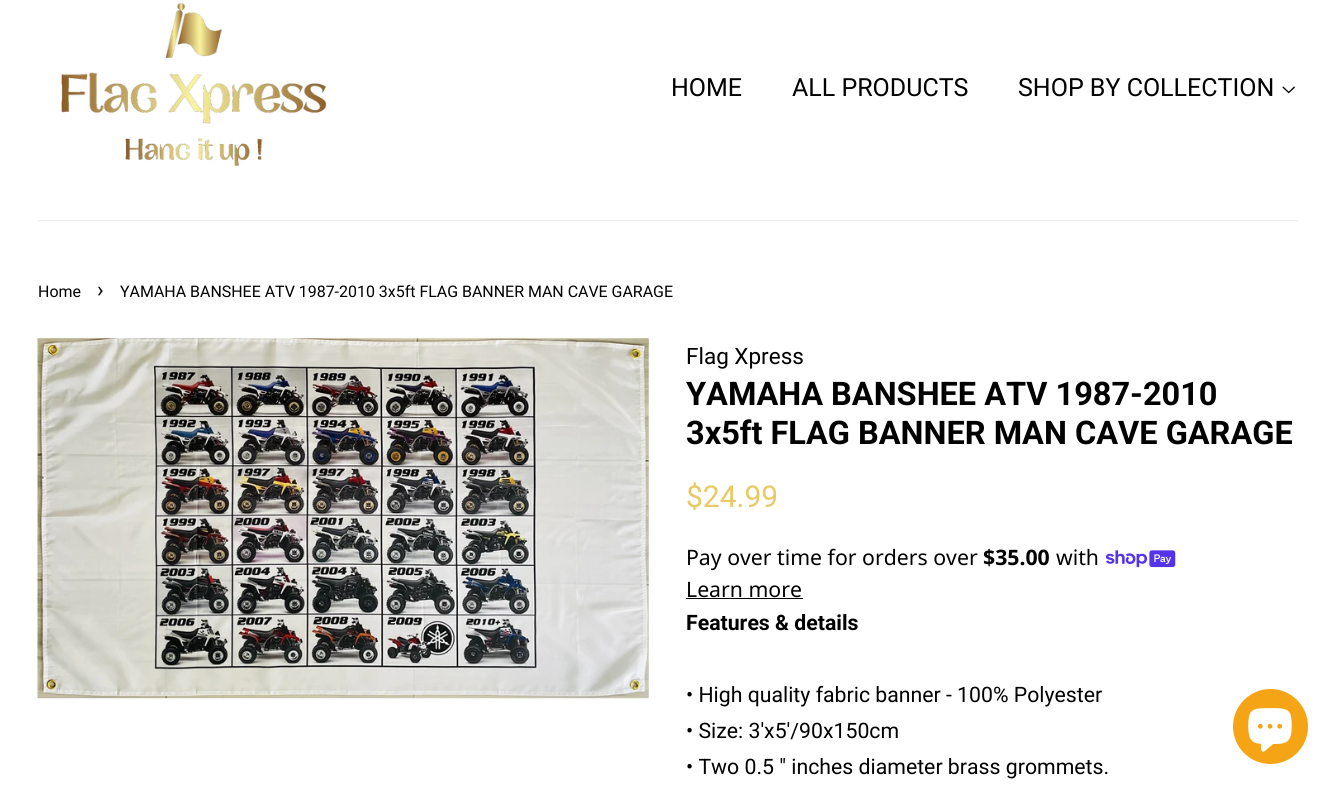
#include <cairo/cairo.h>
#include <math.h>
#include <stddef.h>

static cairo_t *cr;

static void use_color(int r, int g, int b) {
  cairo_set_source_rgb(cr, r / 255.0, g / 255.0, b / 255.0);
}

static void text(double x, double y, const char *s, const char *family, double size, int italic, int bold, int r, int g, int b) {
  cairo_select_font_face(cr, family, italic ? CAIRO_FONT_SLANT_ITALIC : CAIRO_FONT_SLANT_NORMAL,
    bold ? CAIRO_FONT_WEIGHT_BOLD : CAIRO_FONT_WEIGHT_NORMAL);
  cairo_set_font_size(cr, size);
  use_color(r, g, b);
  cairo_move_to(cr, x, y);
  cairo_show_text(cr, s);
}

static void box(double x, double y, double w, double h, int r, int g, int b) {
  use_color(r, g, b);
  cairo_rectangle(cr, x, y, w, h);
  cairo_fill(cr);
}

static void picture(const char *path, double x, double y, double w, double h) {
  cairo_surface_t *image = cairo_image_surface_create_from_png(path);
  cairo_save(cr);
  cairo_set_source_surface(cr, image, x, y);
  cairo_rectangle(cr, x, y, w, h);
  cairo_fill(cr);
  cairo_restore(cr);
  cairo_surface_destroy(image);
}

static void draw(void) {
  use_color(255, 255, 255);
  cairo_paint(cr);
  box(38, 220, 1260, 1, 235, 235, 235);
  picture("img_01.png", 61, 3, 266, 163);
  picture("img_02.png", 1282, 86, 13, 8);
  picture("img_03.png", 37, 338, 612, 361);
  picture("img_04.png", 1106, 550, 70, 18);
  box(686, 598, 117, 1, 0, 0, 0);
  use_color(245, 164, 22);
  cairo_arc(cr, 1270.5, 726.5, 37.5, 0, 2 * M_PI);
  cairo_fill(cr);
  picture("img_05.png", 1248, 708, 44, 44);
  text(671, 96, "HOME", "Roboto", 25, 0, 0, 0, 0, 0);
  text(792, 96, "ALL PRODUCTS", "Roboto", 25, 0, 0, 0, 0, 0);
  text(1018, 96, "SHOP BY COLLECTION", "Roboto", 25, 0, 0, 0, 0, 0);
  text(38, 297, "Home", "Roboto", 15.95, 0, 0, 0, 0, 0);
  text(97, 297, "›", "Roboto", 22, 0, 0, 0, 0, 0);
  text(120, 297, "YAMAHA BANSHEE ATV 1987-2010 3x5ft FLAG BANNER MAN CAVE GARAGE", "Roboto", 15.95, 0, 0, 0, 0, 0);
  text(686, 364, "Flag Xpress", "Roboto", 22.5, 0, 0, 0, 0, 0);
  text(686, 405, "YAMAHA BANSHEE ATV 1987-2010", "Roboto", 32.5, 0, 1, 0, 0, 0);
  text(686, 444, "3x5ft FLAG BANNER MAN CAVE GARAGE", "Roboto", 32.5, 0, 1, 0, 0, 0);
  text(686, 507, "$24.99", "Roboto", 30, 0, 0, 233, 201, 100);
  text(686, 565, "Pay over time for orders over", "Noto Sans", 21.25, 0, 0, 0, 0, 0);
  text(983, 565, "$35.00", "Noto Sans", 21.25, 0, 1, 0, 0, 0);
  text(1056, 565, "with", "Noto Sans", 21.25, 0, 0, 0, 0, 0);
  text(686, 597, "Learn more", "Noto Sans", 21.25, 0, 0, 0, 0, 0);
  text(686, 630, "Features & details", "Roboto", 21.25, 0, 1, 0, 0, 0);
  text(686, 702, "• High quality fabric banner - 100% Polyester", "Roboto", 21.25, 0, 0, 0, 0, 0);
  text(686, 738, "• Size: 3'x5'/90x150cm", "Roboto", 21.25, 0, 0, 0, 0, 0);
  text(686, 774, "• Two 0.5 \" inches diameter brass grommets.", "Roboto", 21.25, 0, 0, 0, 0, 0);
}

int main(void) {
  cairo_surface_t *surface = cairo_image_surface_create(CAIRO_FORMAT_RGB24, 1335, 790);
  cr = cairo_create(surface);
  cairo_font_options_t *options = cairo_font_options_create();
  cairo_font_options_set_hint_metrics(options, CAIRO_HINT_METRICS_OFF);
  cairo_font_options_set_hint_style(options, CAIRO_HINT_STYLE_NONE);
  cairo_set_font_options(cr, options);
  cairo_set_miter_limit(cr, 4);
  draw();
  cairo_surface_write_to_png(surface, "out.png");
  cairo_font_options_destroy(options);
  cairo_destroy(cr);
  cairo_surface_destroy(surface);
  return 0;
}
